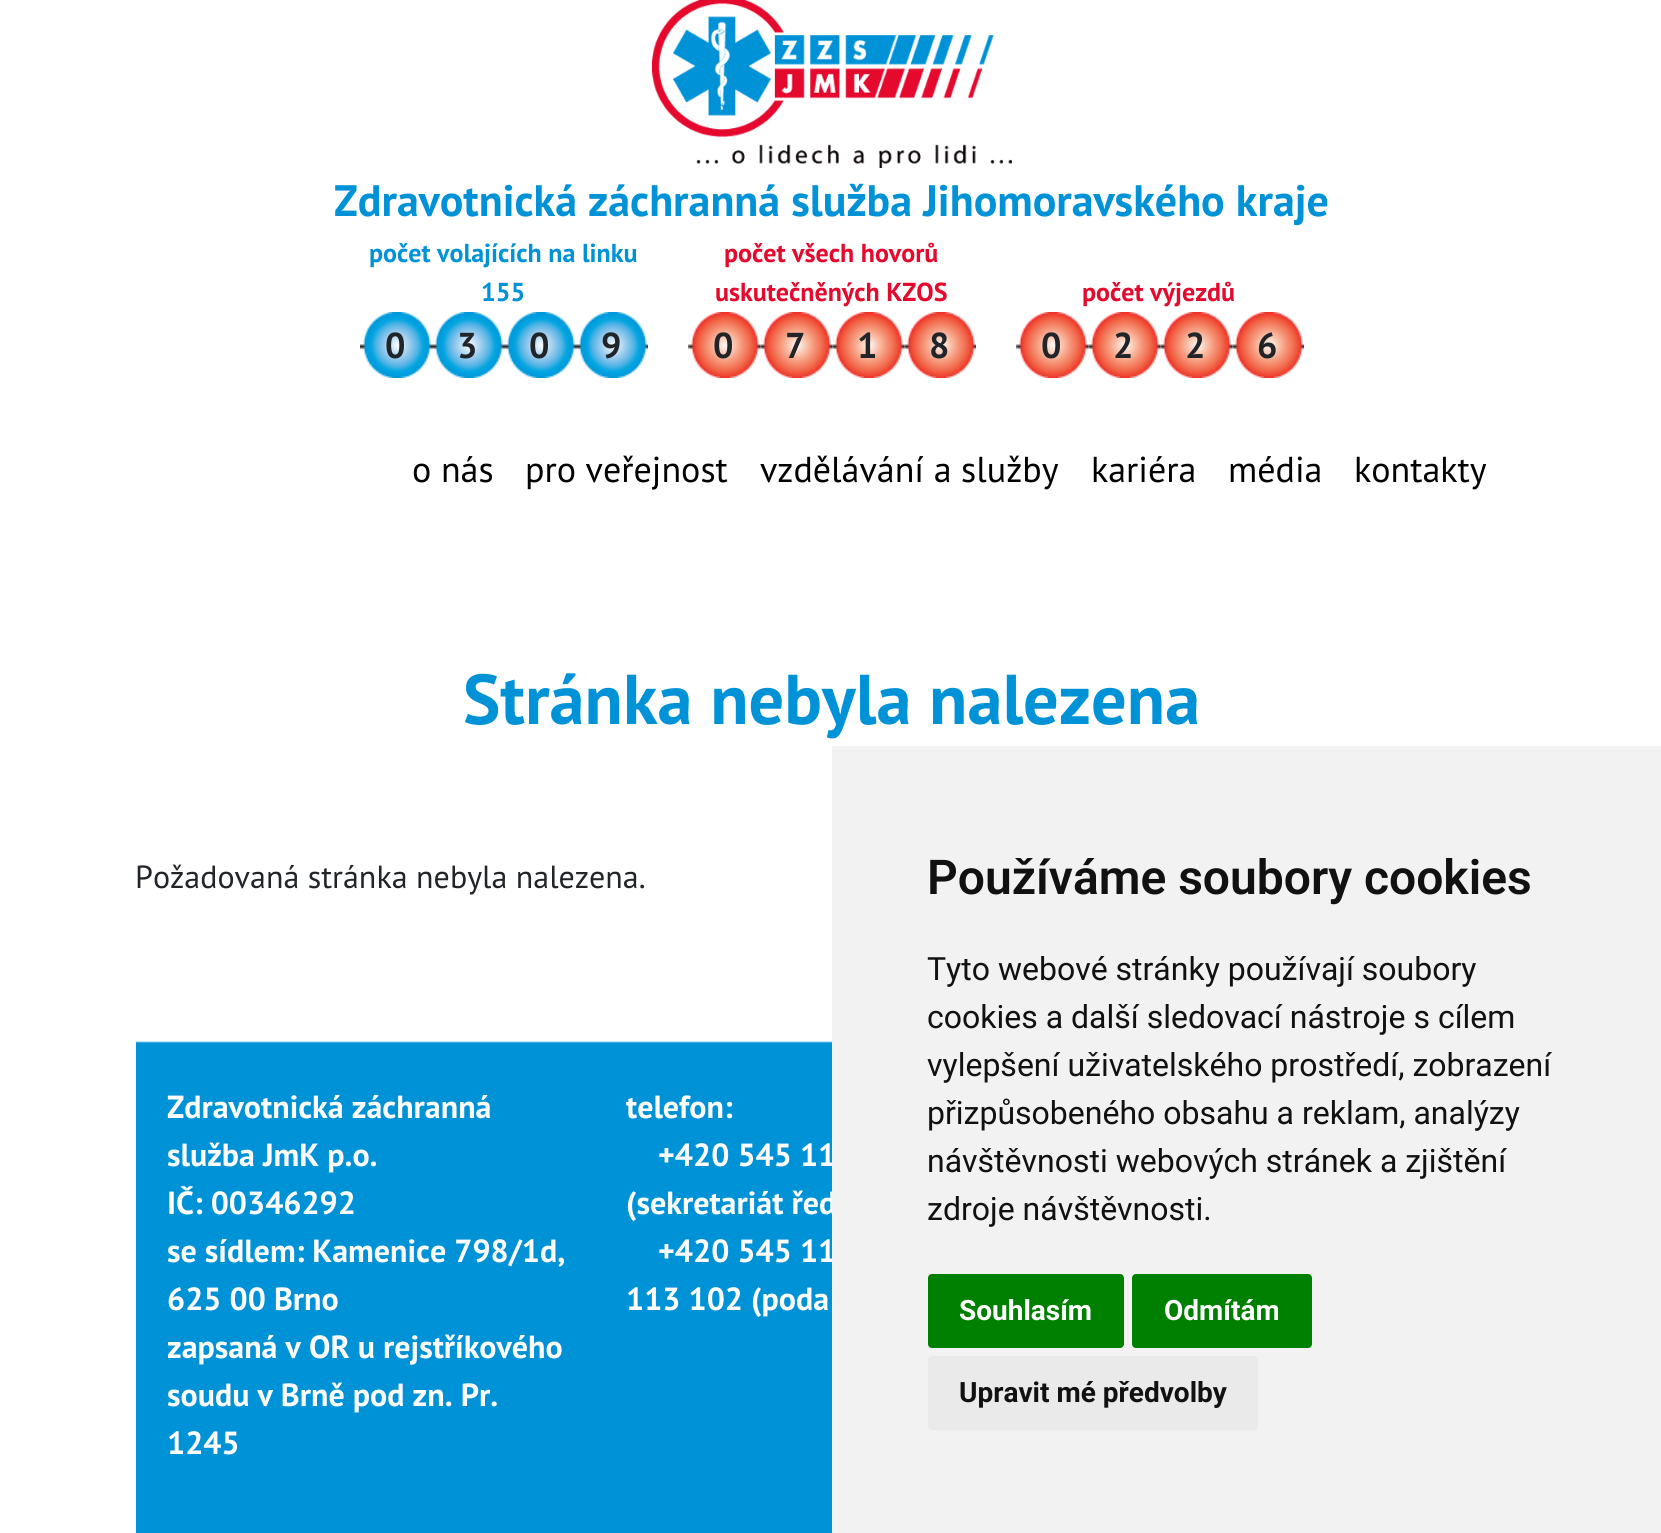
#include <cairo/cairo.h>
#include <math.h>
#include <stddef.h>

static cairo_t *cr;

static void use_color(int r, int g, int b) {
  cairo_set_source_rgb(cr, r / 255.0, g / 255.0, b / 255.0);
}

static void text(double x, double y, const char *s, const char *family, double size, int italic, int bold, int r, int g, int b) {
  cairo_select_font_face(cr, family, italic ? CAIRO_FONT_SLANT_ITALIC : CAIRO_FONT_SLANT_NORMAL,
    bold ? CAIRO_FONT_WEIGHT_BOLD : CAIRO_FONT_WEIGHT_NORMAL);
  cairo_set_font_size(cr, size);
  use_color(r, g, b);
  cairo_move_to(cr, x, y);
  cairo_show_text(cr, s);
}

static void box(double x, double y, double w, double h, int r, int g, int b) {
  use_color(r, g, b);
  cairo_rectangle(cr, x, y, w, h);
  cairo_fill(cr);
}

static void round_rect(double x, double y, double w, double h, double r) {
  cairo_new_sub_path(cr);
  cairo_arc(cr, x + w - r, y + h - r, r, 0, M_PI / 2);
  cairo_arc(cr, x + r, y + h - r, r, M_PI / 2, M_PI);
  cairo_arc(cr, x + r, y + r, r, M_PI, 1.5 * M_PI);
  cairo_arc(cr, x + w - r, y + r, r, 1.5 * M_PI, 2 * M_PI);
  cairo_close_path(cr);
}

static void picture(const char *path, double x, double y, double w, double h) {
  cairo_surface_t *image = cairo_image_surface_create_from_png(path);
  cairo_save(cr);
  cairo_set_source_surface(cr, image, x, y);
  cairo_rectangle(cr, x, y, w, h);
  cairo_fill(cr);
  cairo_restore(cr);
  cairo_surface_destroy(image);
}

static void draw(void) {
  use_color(255, 255, 255);
  cairo_paint(cr);
  picture("img_01.png", 652, 0, 360, 168);
  picture("img_02.png", 360, 312, 72, 66);
  picture("img_02.png", 432, 312, 72, 66);
  picture("img_02.png", 504, 312, 72, 66);
  picture("img_02.png", 576, 312, 72, 66);
  picture("img_03.png", 688, 312, 72, 66);
  picture("img_03.png", 760, 312, 72, 66);
  picture("img_03.png", 832, 312, 72, 66);
  picture("img_03.png", 904, 312, 72, 66);
  picture("img_03.png", 1016, 312, 72, 66);
  picture("img_03.png", 1088, 312, 72, 66);
  picture("img_03.png", 1160, 312, 72, 66);
  picture("img_03.png", 1232, 312, 72, 66);
  picture("img_04.png", 136, 1041, 696, 9);
  box(136, 1050, 696, 483, 0, 146, 215);
  text(334, 216, "Zdravotnická záchranná služba Jihomoravského kraje", "PT Sans", 44, 0, 1, 0, 146, 215);
  text(369, 262, "počet volajících na linku", "PT Sans", 26, 0, 1, 0, 146, 215);
  text(481, 301, "155", "PT Sans", 26, 0, 1, 0, 146, 215);
  text(385, 358, "0", "PT Sans", 36, 0, 1, 33, 37, 41);
  text(457, 358, "3", "PT Sans", 36, 0, 1, 33, 37, 41);
  text(529, 358, "0", "PT Sans", 36, 0, 1, 33, 37, 41);
  text(601, 358, "9", "PT Sans", 36, 0, 1, 33, 37, 41);
  text(724, 262, "počet všech hovorů", "PT Sans", 26, 0, 1, 228, 9, 45);
  text(715, 301, "uskutečněných KZOS", "PT Sans", 26, 0, 1, 228, 9, 45);
  text(713, 358, "0", "PT Sans", 36, 0, 1, 33, 37, 41);
  text(785, 358, "7", "PT Sans", 36, 0, 1, 33, 37, 41);
  text(857, 358, "1", "PT Sans", 36, 0, 1, 33, 37, 41);
  text(929, 358, "8", "PT Sans", 36, 0, 1, 33, 37, 41);
  text(1082, 301, "počet výjezdů", "PT Sans", 26, 0, 1, 228, 9, 45);
  text(1041, 358, "0", "PT Sans", 36, 0, 1, 33, 37, 41);
  text(1113, 358, "2", "PT Sans", 36, 0, 1, 33, 37, 41);
  text(1185, 358, "2", "PT Sans", 36, 0, 1, 33, 37, 41);
  text(1257, 358, "6", "PT Sans", 36, 0, 1, 33, 37, 41);
  text(412, 482, "o nás", "PT Sans", 36, 0, 0, 0, 0, 0);
  text(525, 482, "pro veřejnost", "PT Sans", 36, 0, 0, 0, 0, 0);
  text(760, 482, "vzdělávání a služby", "PT Sans", 36, 0, 0, 0, 0, 0);
  text(1091, 482, "kariéra", "PT Sans", 36, 0, 0, 0, 0, 0);
  text(1228, 482, "média", "PT Sans", 36, 0, 0, 0, 0, 0);
  text(1354, 482, "kontakty", "PT Sans", 36, 0, 0, 0, 0, 0);
  text(463, 724, "Stránka nebyla nalezena", "PT Sans", 70.4, 0, 1, 0, 146, 215);
  text(135, 888, "Požadovaná stránka nebyla nalezena.", "PT Sans", 32, 0, 0, 33, 37, 41);
  text(167, 1118, "Zdravotnická záchranná", "PT Sans", 32, 0, 1, 255, 255, 255);
  text(167, 1166, "služba JmK p.o.", "PT Sans", 32, 0, 1, 255, 255, 255);
  text(167, 1214, "IČ: 00346292", "PT Sans", 32, 0, 1, 255, 255, 255);
  text(167, 1262, "se sídlem: Kamenice 798/1d,", "PT Sans", 32, 0, 1, 255, 255, 255);
  text(167, 1310, "625 00 Brno", "PT Sans", 32, 0, 1, 255, 255, 255);
  text(167, 1358, "zapsaná v OR u rejstříkového", "PT Sans", 32, 0, 1, 255, 255, 255);
  text(167, 1406, "soudu v Brně pod zn. Pr.", "PT Sans", 32, 0, 1, 255, 255, 255);
  text(167, 1454, "1245", "PT Sans", 32, 0, 1, 255, 255, 255);
  text(626, 1118, "telefon:", "PT Sans", 32, 0, 1, 255, 255, 255);
  text(658, 1166, "+420 545 11", "PT Sans", 32, 0, 1, 255, 255, 255);
  text(626, 1214, "(sekretariát řed", "PT Sans", 32, 0, 1, 255, 255, 255);
  text(658, 1262, "+420 545 11", "PT Sans", 32, 0, 1, 255, 255, 255);
  text(626, 1310, "113 102 (poda", "PT Sans", 32, 0, 1, 255, 255, 255);
  box(832, 746, 829, 787, 242, 242, 242);
  text(927, 894, "Používáme soubory cookies", "Roboto SemiBold", 48, 0, 0, 17, 17, 17);
  text(927, 980, "Tyto webové stránky používají soubory", "Roboto", 32, 0, 0, 17, 17, 17);
  text(927, 1028, "cookies a další sledovací nástroje s cílem", "Roboto", 32, 0, 0, 17, 17, 17);
  text(927, 1076, "vylepšení uživatelského prostředí, zobrazení", "Roboto", 32, 0, 0, 17, 17, 17);
  text(927, 1124, "přizpůsobeného obsahu a reklam, analýzy", "Roboto", 32, 0, 0, 17, 17, 17);
  text(927, 1172, "návštěvnosti webových stránek a zjištění", "Roboto", 32, 0, 0, 17, 17, 17);
  text(927, 1220, "zdroje návštěvnosti.", "Roboto", 32, 0, 0, 17, 17, 17);
  use_color(0, 128, 0);
  round_rect(928, 1274, 196, 74, 4);
  cairo_fill(cr);
  text(959, 1320, "Souhlasím", "Roboto", 28, 0, 1, 255, 255, 255);
  use_color(0, 128, 0);
  round_rect(1132, 1274, 180, 74, 4);
  cairo_fill(cr);
  text(1164, 1320, "Odmítám", "Roboto", 28, 0, 1, 255, 255, 255);
  use_color(234, 234, 234);
  round_rect(928, 1356, 330, 74, 4);
  cairo_fill(cr);
  text(959, 1402, "Upravit mé předvolby", "Roboto", 28, 0, 1, 17, 17, 17);
}

int main(void) {
  cairo_surface_t *surface = cairo_image_surface_create(CAIRO_FORMAT_RGB24, 1661, 1533);
  cr = cairo_create(surface);
  cairo_font_options_t *options = cairo_font_options_create();
  cairo_font_options_set_hint_metrics(options, CAIRO_HINT_METRICS_OFF);
  cairo_font_options_set_hint_style(options, CAIRO_HINT_STYLE_NONE);
  cairo_set_font_options(cr, options);
  cairo_set_miter_limit(cr, 4);
  draw();
  cairo_surface_write_to_png(surface, "out.png");
  cairo_font_options_destroy(options);
  cairo_destroy(cr);
  cairo_surface_destroy(surface);
  return 0;
}
